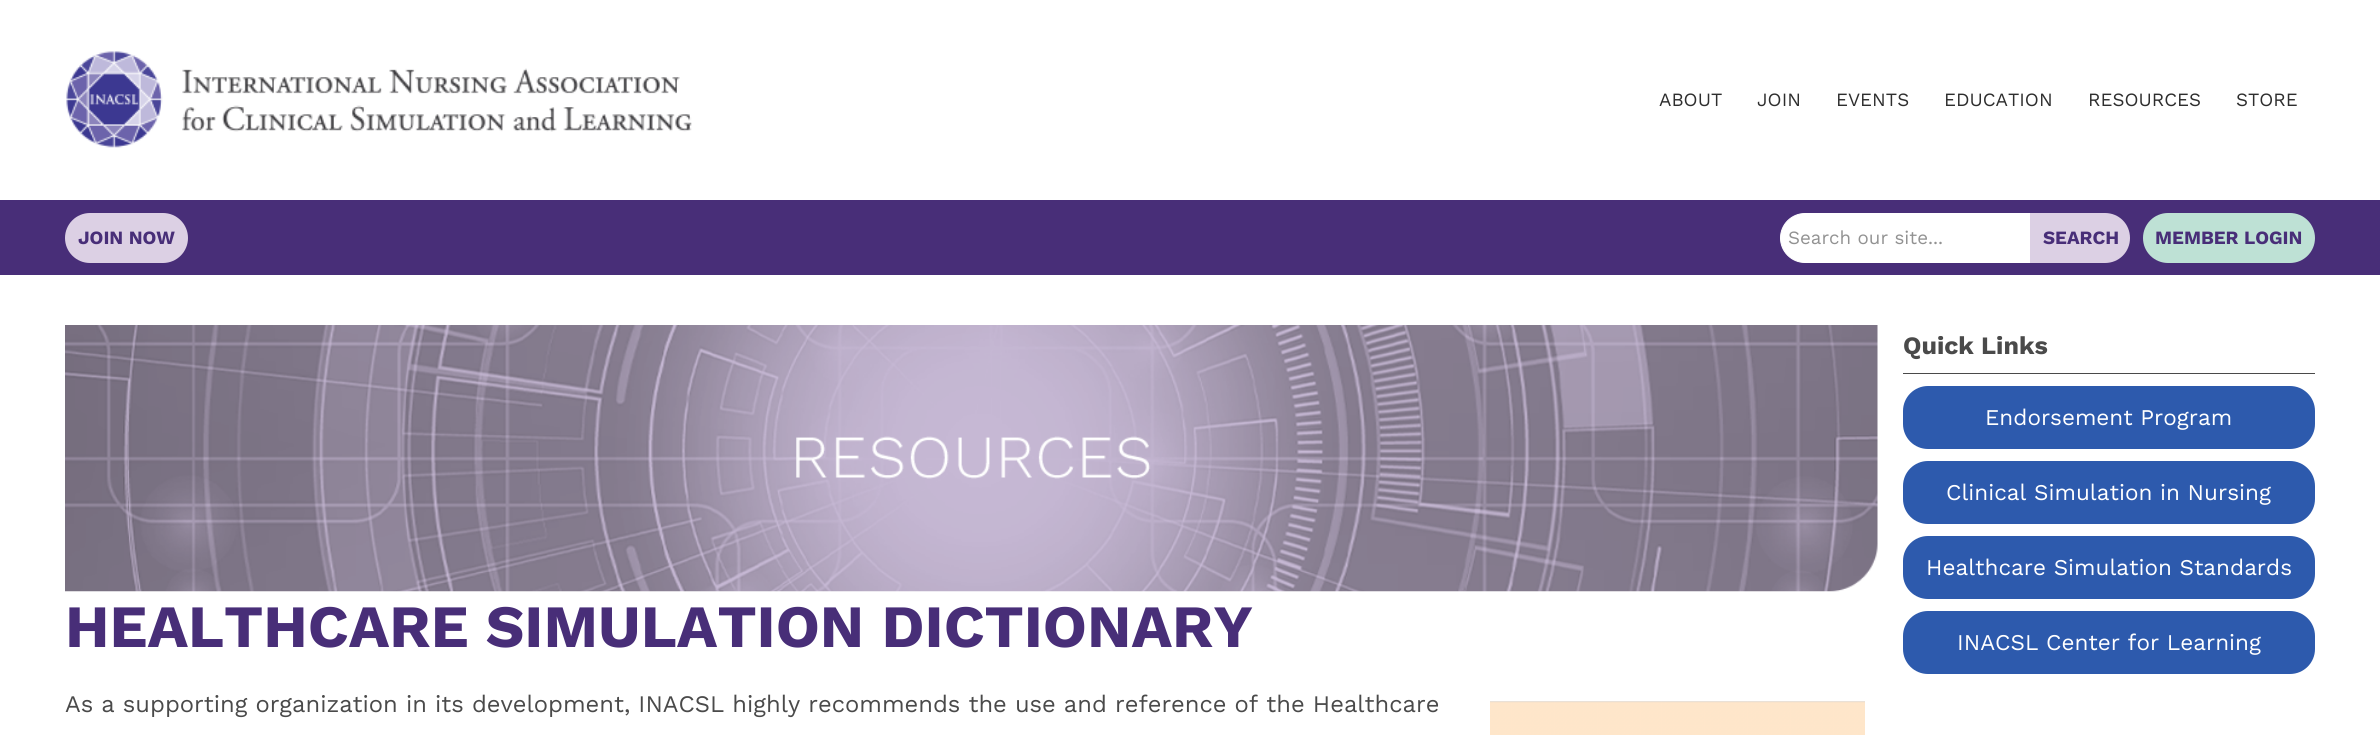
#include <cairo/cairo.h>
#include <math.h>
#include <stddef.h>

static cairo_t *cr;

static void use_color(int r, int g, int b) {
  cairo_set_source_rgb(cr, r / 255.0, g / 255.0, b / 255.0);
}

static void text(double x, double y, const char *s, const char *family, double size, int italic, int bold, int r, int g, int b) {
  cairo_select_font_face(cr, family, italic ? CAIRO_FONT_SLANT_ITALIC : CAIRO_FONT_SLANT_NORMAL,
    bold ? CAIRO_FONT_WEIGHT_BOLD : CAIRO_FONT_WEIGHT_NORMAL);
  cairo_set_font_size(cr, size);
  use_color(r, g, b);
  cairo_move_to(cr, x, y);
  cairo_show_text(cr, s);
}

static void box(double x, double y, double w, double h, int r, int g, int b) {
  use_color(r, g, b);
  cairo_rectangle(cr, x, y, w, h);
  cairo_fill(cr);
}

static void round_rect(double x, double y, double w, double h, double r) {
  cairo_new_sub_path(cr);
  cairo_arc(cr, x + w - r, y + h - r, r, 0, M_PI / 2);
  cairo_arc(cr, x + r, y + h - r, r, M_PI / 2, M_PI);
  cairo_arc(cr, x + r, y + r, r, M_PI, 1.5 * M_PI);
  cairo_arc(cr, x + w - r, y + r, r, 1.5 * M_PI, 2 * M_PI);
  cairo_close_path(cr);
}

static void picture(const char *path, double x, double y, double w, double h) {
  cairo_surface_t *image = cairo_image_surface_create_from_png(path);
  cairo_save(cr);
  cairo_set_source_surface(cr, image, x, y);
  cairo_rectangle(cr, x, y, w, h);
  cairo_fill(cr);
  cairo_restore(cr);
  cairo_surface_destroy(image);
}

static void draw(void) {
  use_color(255, 255, 255);
  cairo_paint(cr);
  picture("img_01.png", 66, 51, 626, 97);
  box(0, 200, 2380, 75, 72, 46, 120);
  use_color(220, 208, 228);
  round_rect(65, 213, 123, 50, 25);
  cairo_fill(cr);
  use_color(255, 255, 255);
  cairo_new_path(cr);
  cairo_move_to(cr, 1805, 213.5);
  cairo_line_to(cr, 2029.5, 213.5);
  cairo_line_to(cr, 2029.5, 262.5);
  cairo_line_to(cr, 1805, 262.5);
  cairo_curve_to(cr, 1791.5, 262.5, 1780.5, 251.5, 1780.5, 238);
  cairo_curve_to(cr, 1780.5, 224.5, 1791.5, 213.5, 1805, 213.5);
  cairo_close_path(cr);
  cairo_fill_preserve(cr);
  cairo_set_line_width(cr, 1);
  cairo_stroke(cr);
  use_color(220, 208, 228);
  cairo_new_path(cr);
  cairo_move_to(cr, 2030, 213);
  cairo_line_to(cr, 2105, 213);
  cairo_curve_to(cr, 2119, 213, 2130, 224, 2130, 238);
  cairo_curve_to(cr, 2130, 252, 2119, 263, 2105, 263);
  cairo_line_to(cr, 2030, 263);
  cairo_close_path(cr);
  cairo_fill(cr);
  use_color(190, 225, 213);
  round_rect(2143, 213, 172, 50, 25);
  cairo_fill(cr);
  picture("img_02.png", 65, 325, 1813, 267);
  picture("img_03.png", 1490, 701, 375, 34);
  box(1903, 373, 412, 1, 74, 74, 74);
  use_color(45, 90, 173);
  round_rect(1903, 386, 412, 63, 25);
  cairo_fill(cr);
  round_rect(1903, 461, 412, 63, 25);
  cairo_fill(cr);
  round_rect(1903, 536, 412, 63, 25);
  cairo_fill(cr);
  round_rect(1903, 611, 412, 63, 25);
  cairo_fill(cr);
  text(1659, 106, "ABOUT", "Work Sans", 18.75, 0, 0, 46, 46, 46);
  text(1757, 106, "JOIN", "Work Sans", 18.75, 0, 0, 46, 46, 46);
  text(1836, 106, "EVENTS", "Work Sans", 18.75, 0, 0, 46, 46, 46);
  text(1944, 106, "EDUCATION", "Work Sans", 18.75, 0, 0, 46, 46, 46);
  text(2088, 106, "RESOURCES", "Work Sans", 18.75, 0, 0, 46, 46, 46);
  text(2236, 106, "STORE", "Work Sans", 18.75, 0, 0, 46, 46, 46);
  text(78, 244, "JOIN NOW", "Work Sans", 18.75, 0, 1, 72, 46, 120);
  text(1788, 244, "Search our site...", "Work Sans", 18.75, 0, 0, 146, 146, 146);
  text(2043, 244, "SEARCH", "Work Sans", 18.75, 0, 1, 72, 46, 120);
  text(2155, 244, "MEMBER LOGIN", "Work Sans", 18.75, 0, 1, 72, 46, 120);
  text(65, 647, "HEALTHCARE SIMULATION DICTIONARY", "Work Sans", 60, 0, 1, 72, 46, 120);
  text(65, 712, "As a supporting organization in its development, INACSL highly recommends the use and reference of the Healthcare", "Work Sans", 23.75, 0, 0, 74, 74, 74);
  text(1903, 354, "Quick Links", "Work Sans", 25, 0, 1, 74, 74, 74);
  text(1985, 425, "Endorsement Program", "Work Sans", 22.5, 0, 0, 255, 255, 255);
  text(1946, 500, "Clinical Simulation in Nursing", "Work Sans", 22.5, 0, 0, 255, 255, 255);
  text(1926, 575, "Healthcare Simulation Standards", "Work Sans", 22.5, 0, 0, 255, 255, 255);
  text(1957, 650, "INACSL Center for Learning", "Work Sans", 22.5, 0, 0, 255, 255, 255);
}

int main(void) {
  cairo_surface_t *surface = cairo_image_surface_create(CAIRO_FORMAT_RGB24, 2380, 735);
  cr = cairo_create(surface);
  cairo_font_options_t *options = cairo_font_options_create();
  cairo_font_options_set_hint_metrics(options, CAIRO_HINT_METRICS_OFF);
  cairo_font_options_set_hint_style(options, CAIRO_HINT_STYLE_NONE);
  cairo_set_font_options(cr, options);
  cairo_set_miter_limit(cr, 4);
  draw();
  cairo_surface_write_to_png(surface, "out.png");
  cairo_font_options_destroy(options);
  cairo_destroy(cr);
  cairo_surface_destroy(surface);
  return 0;
}
